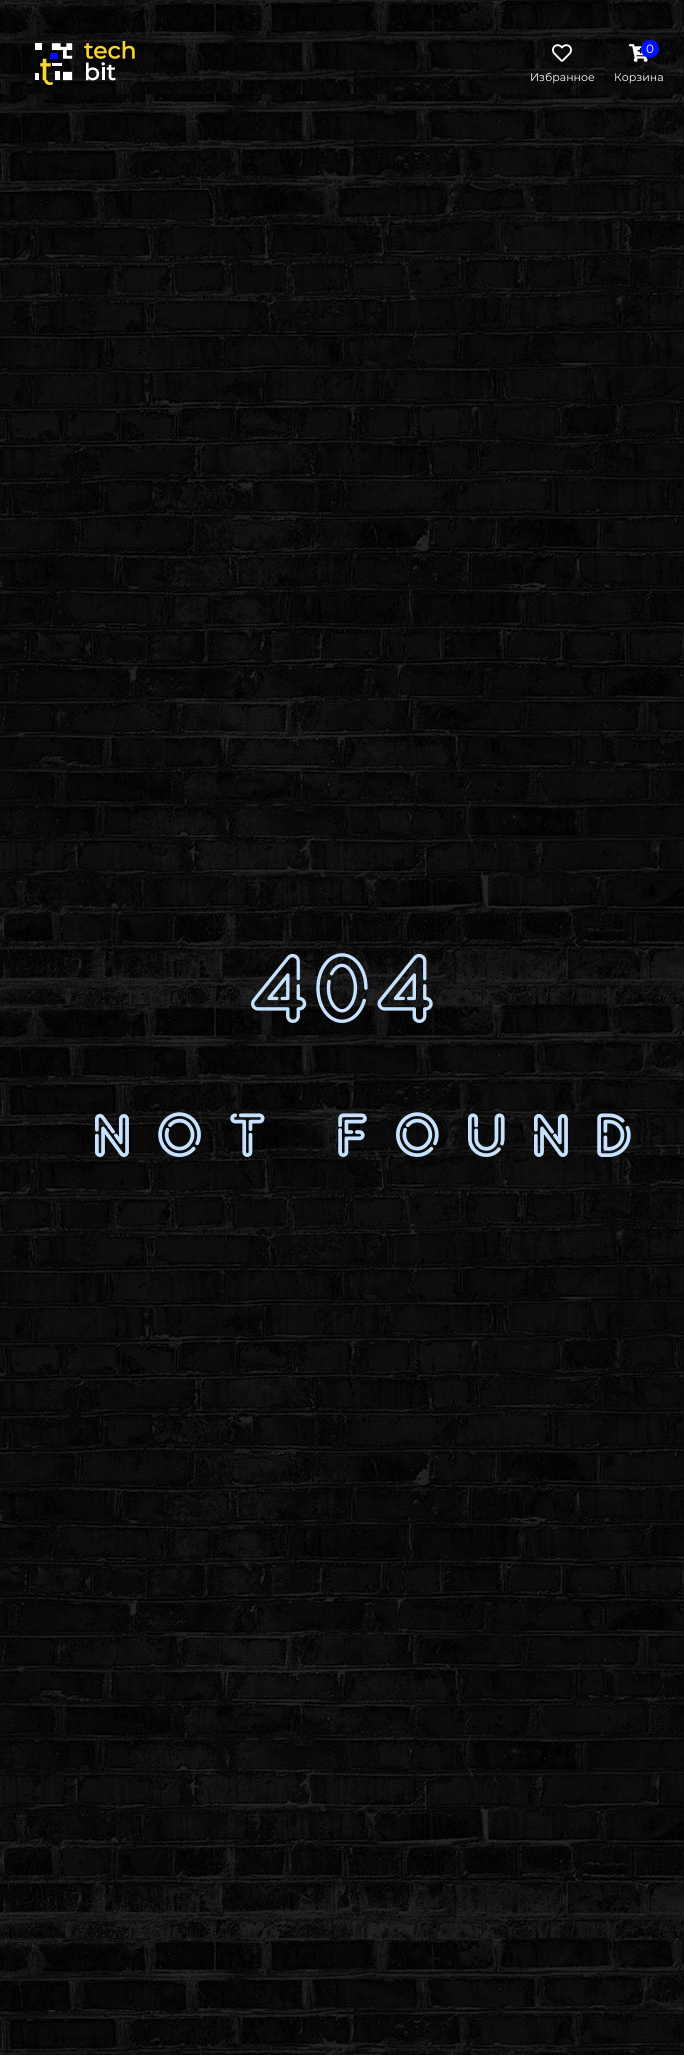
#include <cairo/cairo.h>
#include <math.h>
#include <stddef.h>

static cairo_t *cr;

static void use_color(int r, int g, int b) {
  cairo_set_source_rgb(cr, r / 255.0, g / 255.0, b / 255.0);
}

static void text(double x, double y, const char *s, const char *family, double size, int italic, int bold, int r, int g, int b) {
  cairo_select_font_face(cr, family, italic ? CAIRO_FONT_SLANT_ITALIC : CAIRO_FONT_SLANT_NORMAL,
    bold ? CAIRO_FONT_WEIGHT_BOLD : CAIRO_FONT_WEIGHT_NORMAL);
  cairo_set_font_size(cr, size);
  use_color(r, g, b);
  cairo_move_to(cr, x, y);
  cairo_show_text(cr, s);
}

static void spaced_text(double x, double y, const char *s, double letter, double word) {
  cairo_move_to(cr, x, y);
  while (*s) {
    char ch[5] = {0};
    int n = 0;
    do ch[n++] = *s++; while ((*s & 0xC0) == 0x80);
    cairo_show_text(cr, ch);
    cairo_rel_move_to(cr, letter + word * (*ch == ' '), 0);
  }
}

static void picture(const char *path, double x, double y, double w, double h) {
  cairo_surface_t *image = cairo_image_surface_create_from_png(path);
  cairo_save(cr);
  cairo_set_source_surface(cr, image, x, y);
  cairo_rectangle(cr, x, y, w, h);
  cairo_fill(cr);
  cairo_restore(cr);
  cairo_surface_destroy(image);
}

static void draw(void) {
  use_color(255, 255, 255);
  cairo_paint(cr);
  picture("img_01.png", 0, 0, 684, 94);
  picture("img_02.png", 35, 41, 100, 44);
  picture("img_03.png", 552, 44, 20, 18);
  picture("img_04.png", 629, 44, 19, 18);
  use_color(0, 15, 255);
  cairo_arc(cr, 650, 49, 9, 0, 2 * M_PI);
  cairo_fill(cr);
  picture("img_05.png", 0, 94, 684, 1961);
  text(530, 81, "Избранное", "Montserrat", 11, 0, 0, 255, 255, 255);
  text(646, 53, "0", "Montserrat", 12, 0, 0, 255, 255, 255);
  text(614, 81, "Корзина", "Montserrat", 11, 0, 0, 255, 255, 255);
  text(246, 1023, "404", "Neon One", 100, 0, 0, 198, 226, 255);
  cairo_select_font_face(cr, "Neon One", CAIRO_FONT_SLANT_NORMAL, CAIRO_FONT_WEIGHT_BOLD);
  cairo_set_font_size(cr, 60);
  spaced_text(92, 1157, "NOT FOUND", 25, 0);
}

int main(void) {
  cairo_surface_t *surface = cairo_image_surface_create(CAIRO_FORMAT_RGB24, 684, 2055);
  cr = cairo_create(surface);
  cairo_font_options_t *options = cairo_font_options_create();
  cairo_font_options_set_hint_metrics(options, CAIRO_HINT_METRICS_OFF);
  cairo_font_options_set_hint_style(options, CAIRO_HINT_STYLE_NONE);
  cairo_set_font_options(cr, options);
  cairo_set_miter_limit(cr, 4);
  draw();
  cairo_surface_write_to_png(surface, "out.png");
  cairo_font_options_destroy(options);
  cairo_destroy(cr);
  cairo_surface_destroy(surface);
  return 0;
}
